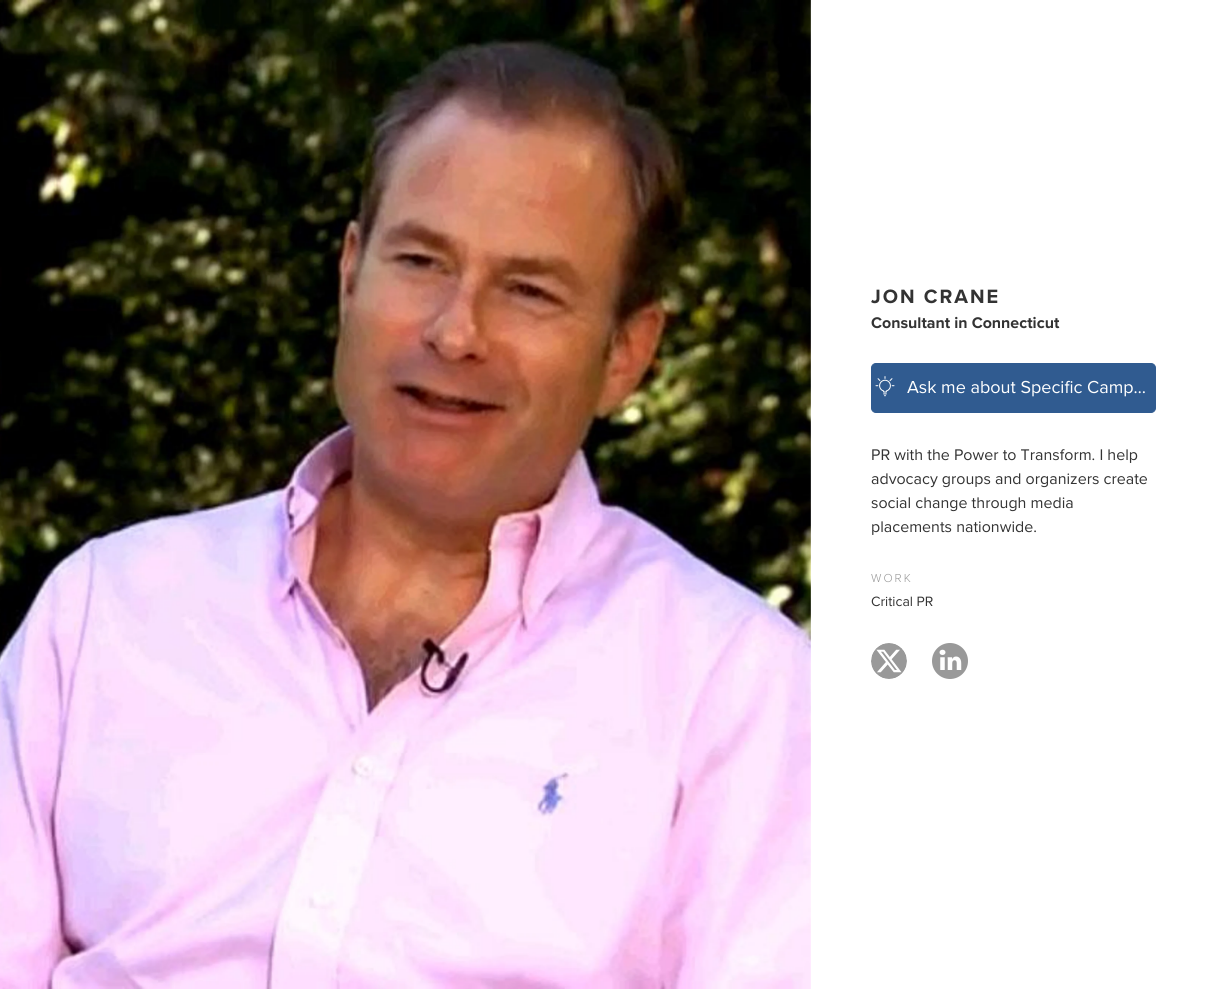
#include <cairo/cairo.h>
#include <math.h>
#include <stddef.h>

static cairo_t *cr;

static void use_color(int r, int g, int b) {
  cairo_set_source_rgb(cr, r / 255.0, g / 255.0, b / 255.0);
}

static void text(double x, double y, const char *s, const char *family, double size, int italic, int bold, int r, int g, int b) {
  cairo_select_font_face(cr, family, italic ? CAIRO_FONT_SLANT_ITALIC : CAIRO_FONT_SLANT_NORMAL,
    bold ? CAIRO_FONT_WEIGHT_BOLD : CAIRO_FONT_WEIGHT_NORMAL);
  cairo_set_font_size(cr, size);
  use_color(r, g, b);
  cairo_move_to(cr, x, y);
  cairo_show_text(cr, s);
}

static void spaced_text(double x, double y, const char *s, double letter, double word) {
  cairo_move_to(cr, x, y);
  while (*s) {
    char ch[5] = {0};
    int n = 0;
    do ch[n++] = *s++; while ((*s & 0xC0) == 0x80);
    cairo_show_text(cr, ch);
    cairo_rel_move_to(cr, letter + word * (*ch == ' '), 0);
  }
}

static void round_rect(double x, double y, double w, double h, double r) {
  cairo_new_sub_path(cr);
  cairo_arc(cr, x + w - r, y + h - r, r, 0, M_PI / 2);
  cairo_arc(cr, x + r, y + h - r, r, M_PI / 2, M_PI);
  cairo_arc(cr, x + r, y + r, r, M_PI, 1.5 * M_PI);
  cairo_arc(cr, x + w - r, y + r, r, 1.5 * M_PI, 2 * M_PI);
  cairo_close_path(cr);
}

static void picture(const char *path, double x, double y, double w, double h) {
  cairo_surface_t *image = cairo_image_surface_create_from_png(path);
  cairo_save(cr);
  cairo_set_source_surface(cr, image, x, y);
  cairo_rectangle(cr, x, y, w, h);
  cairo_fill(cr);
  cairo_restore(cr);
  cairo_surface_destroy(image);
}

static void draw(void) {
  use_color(255, 255, 255);
  cairo_paint(cr);
  picture("img_01.png", 0, 0, 811, 989);
  use_color(48, 91, 144);
  round_rect(871.5, 363.5, 284, 49, 4.5);
  cairo_fill_preserve(cr);
  cairo_set_line_width(cr, 1);
  cairo_stroke(cr);
  picture("img_02.png", 875, 376, 20, 21);
  picture("img_03.png", 871, 643, 36, 36);
  picture("img_04.png", 932, 643, 36, 36);
  cairo_select_font_face(cr, "Proxima Nova", CAIRO_FONT_SLANT_NORMAL, CAIRO_FONT_WEIGHT_BOLD);
  cairo_set_font_size(cr, 20);
  use_color(51, 51, 51);
  spaced_text(871, 303, "JON CRANE", 2, 0);
  text(871, 328, "Consultant in Connecticut", "Proxima Nova", 16, 0, 1, 51, 51, 51);
  text(907, 393, "Ask me about Specific Camp…", "Proxima Nova", 18, 0, 0, 255, 255, 255);
  text(871, 460, "PR with the Power to Transform. I help", "Proxima Nova", 16, 0, 0, 51, 51, 51);
  text(871, 484, "advocacy groups and organizers create", "Proxima Nova", 16, 0, 0, 51, 51, 51);
  text(871, 508, "social change through media", "Proxima Nova", 16, 0, 0, 51, 51, 51);
  text(871, 532, "placements nationwide.", "Proxima Nova", 16, 0, 0, 51, 51, 51);
  cairo_select_font_face(cr, "Proxima Nova Light", CAIRO_FONT_SLANT_NORMAL, CAIRO_FONT_WEIGHT_NORMAL);
  cairo_set_font_size(cr, 12);
  use_color(153, 153, 153);
  spaced_text(871, 582, "WORK", 2, 0);
  text(871, 606, "Critical PR", "Proxima Nova", 14, 0, 0, 51, 51, 51);
}

int main(void) {
  cairo_surface_t *surface = cairo_image_surface_create(CAIRO_FORMAT_RGB24, 1216, 989);
  cr = cairo_create(surface);
  cairo_font_options_t *options = cairo_font_options_create();
  cairo_font_options_set_hint_metrics(options, CAIRO_HINT_METRICS_OFF);
  cairo_font_options_set_hint_style(options, CAIRO_HINT_STYLE_NONE);
  cairo_set_font_options(cr, options);
  cairo_set_miter_limit(cr, 4);
  draw();
  cairo_surface_write_to_png(surface, "out.png");
  cairo_font_options_destroy(options);
  cairo_destroy(cr);
  cairo_surface_destroy(surface);
  return 0;
}
